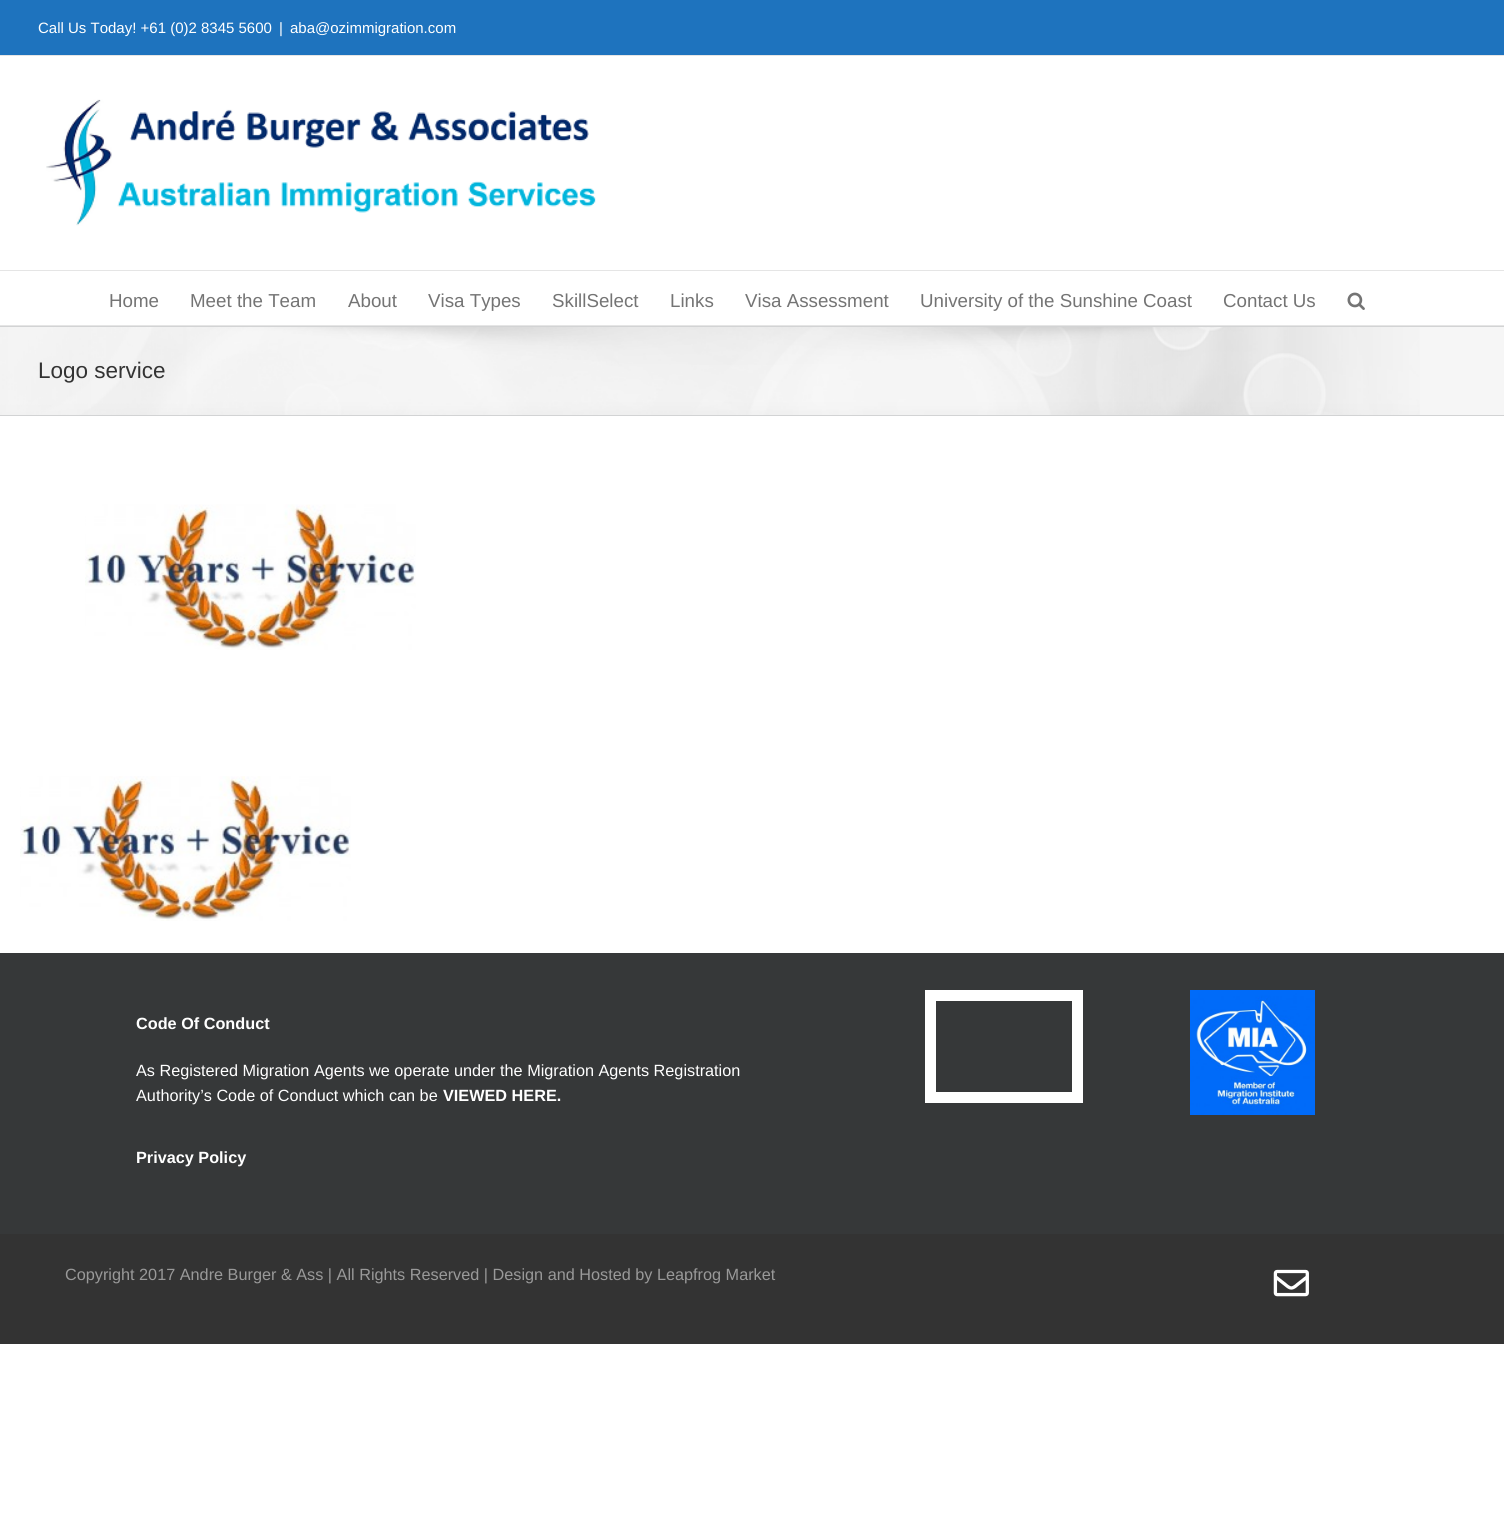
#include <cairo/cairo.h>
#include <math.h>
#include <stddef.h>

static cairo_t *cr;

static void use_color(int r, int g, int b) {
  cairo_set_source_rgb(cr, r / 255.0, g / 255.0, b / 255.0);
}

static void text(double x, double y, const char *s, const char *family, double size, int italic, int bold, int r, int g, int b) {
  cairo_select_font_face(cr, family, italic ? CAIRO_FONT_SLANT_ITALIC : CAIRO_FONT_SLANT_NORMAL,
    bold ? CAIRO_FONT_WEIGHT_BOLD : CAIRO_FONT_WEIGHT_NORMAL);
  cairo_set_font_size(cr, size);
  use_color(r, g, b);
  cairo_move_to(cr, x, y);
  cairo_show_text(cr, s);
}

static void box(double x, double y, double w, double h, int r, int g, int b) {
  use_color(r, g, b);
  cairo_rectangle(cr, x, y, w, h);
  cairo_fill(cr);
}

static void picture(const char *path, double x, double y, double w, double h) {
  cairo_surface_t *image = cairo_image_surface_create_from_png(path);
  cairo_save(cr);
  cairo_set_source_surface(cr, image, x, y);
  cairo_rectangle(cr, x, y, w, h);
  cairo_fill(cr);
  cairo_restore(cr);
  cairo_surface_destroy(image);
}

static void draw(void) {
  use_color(255, 255, 255);
  cairo_paint(cr);
  box(0, 0, 1504, 55, 30, 115, 190);
  box(0, 55, 1504, 1, 229, 229, 229);
  box(0, 270, 1504, 1, 229, 229, 229);
  picture("img_01.png", 46, 99, 550, 127);
  box(0, 325, 1504, 1, 229, 229, 229);
  picture("img_02.png", 1347, 292, 18, 18);
  box(0, 327, 1504, 88, 246, 246, 246);
  picture("img_03.png", 0, 327, 1420, 88);
  box(0, 326, 1504, 1, 210, 211, 212);
  box(0, 415, 1504, 1, 210, 211, 212);
  picture("img_04.png", 85, 504, 331, 146);
  picture("img_05.png", 20, 776, 331, 145);
  box(0, 953, 1504, 281, 54, 56, 57);
  cairo_rectangle(cr, 930.5, 995.5, 147, 102);
  use_color(255, 255, 255);
  cairo_set_line_width(cr, 11);
  cairo_stroke(cr);
  picture("img_06.png", 1190, 990, 125, 125);
  box(0, 1234, 1504, 110, 51, 51, 51);
  picture("img_07.png", 1273, 1269, 36, 28);
  text(38, 33, "Call Us Today! +61 (0)2 8345 5600", "Liberation Sans", 15, 0, 0, 255, 255, 255);
  text(279, 33, "|", "Liberation Sans", 15, 0, 0, 255, 255, 255);
  text(290, 33, "aba@ozimmigration.com", "Liberation Sans", 15, 0, 0, 255, 255, 255);
  text(109, 307, "Home", "Liberation Sans", 18.75, 0, 0, 116, 116, 116);
  text(190, 307, "Meet the Team", "Liberation Sans", 18.75, 0, 0, 116, 116, 116);
  text(348, 307, "About", "Liberation Sans", 18.75, 0, 0, 116, 116, 116);
  text(428, 307, "Visa Types", "Liberation Sans", 18.75, 0, 0, 116, 116, 116);
  text(552, 307, "SkillSelect", "Liberation Sans", 18.75, 0, 0, 116, 116, 116);
  text(670, 307, "Links", "Liberation Sans", 18.75, 0, 0, 116, 116, 116);
  text(745, 307, "Visa Assessment", "Liberation Sans", 18.75, 0, 0, 116, 116, 116);
  text(920, 307, "University of the Sunshine Coast", "Liberation Sans", 18.75, 0, 0, 116, 116, 116);
  text(1223, 307, "Contact Us", "Liberation Sans", 18.75, 0, 0, 116, 116, 116);
  text(38, 378, "Logo service", "Liberation Sans", 22.5, 0, 0, 51, 51, 51);
  text(136, 1029, "Code Of Conduct", "Liberation Sans", 16.25, 0, 1, 255, 255, 255);
  text(136, 1076, "As Registered Migration Agents we operate under the Migration Agents Registration", "Liberation Sans", 16.25, 0, 0, 255, 255, 255);
  text(136, 1101, "Authority’s Code of Conduct which can be", "Liberation Sans", 16.25, 0, 0, 255, 255, 255);
  text(443, 1101, "VIEWED HERE.", "Liberation Sans", 16.25, 0, 1, 255, 255, 255);
  text(136, 1163, "Privacy Policy", "Liberation Sans", 16.25, 0, 1, 255, 255, 255);
  text(65, 1280, "Copyright 2017 Andre Burger & Ass | All Rights Reserved | Design and Hosted by Leapfrog Market", "Liberation Sans", 16.25, 0, 0, 153, 153, 153);
}

int main(void) {
  cairo_surface_t *surface = cairo_image_surface_create(CAIRO_FORMAT_RGB24, 1504, 1540);
  cr = cairo_create(surface);
  cairo_font_options_t *options = cairo_font_options_create();
  cairo_font_options_set_hint_metrics(options, CAIRO_HINT_METRICS_OFF);
  cairo_font_options_set_hint_style(options, CAIRO_HINT_STYLE_NONE);
  cairo_set_font_options(cr, options);
  cairo_set_miter_limit(cr, 4);
  draw();
  cairo_surface_write_to_png(surface, "out.png");
  cairo_font_options_destroy(options);
  cairo_destroy(cr);
  cairo_surface_destroy(surface);
  return 0;
}
